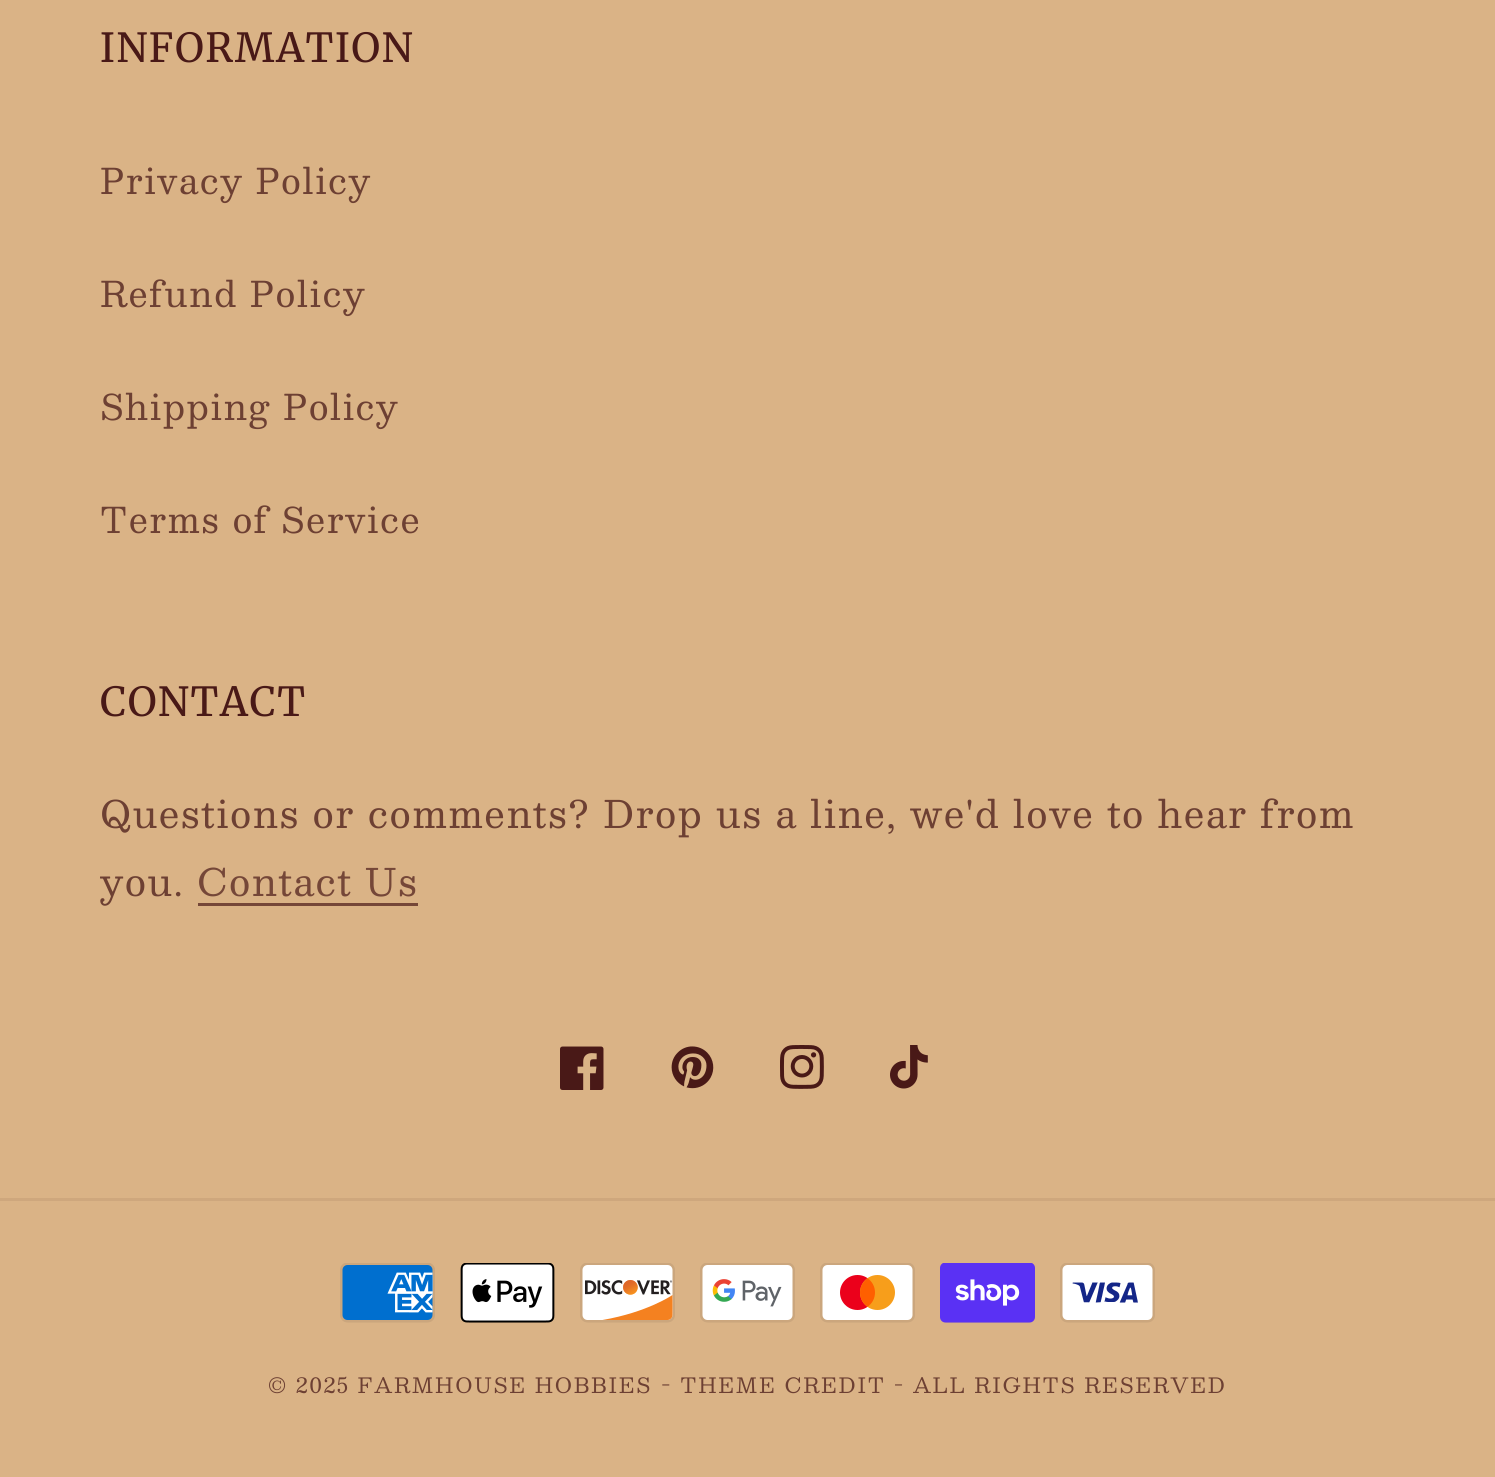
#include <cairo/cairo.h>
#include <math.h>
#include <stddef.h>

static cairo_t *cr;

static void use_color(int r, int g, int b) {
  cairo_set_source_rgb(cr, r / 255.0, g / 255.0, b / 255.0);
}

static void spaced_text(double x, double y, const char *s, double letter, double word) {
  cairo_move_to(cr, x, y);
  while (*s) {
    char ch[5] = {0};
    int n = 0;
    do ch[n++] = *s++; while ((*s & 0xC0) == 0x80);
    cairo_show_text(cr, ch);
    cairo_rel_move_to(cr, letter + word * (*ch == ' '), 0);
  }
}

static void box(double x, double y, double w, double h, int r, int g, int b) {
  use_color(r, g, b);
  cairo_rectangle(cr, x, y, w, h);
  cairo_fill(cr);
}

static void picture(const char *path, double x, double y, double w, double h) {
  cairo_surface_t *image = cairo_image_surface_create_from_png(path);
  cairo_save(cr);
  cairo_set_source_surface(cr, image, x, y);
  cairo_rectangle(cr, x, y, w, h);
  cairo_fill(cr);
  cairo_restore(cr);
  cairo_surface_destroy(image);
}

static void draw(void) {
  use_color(218, 179, 134);
  cairo_paint(cr);
  box(198, 903, 220, 3, 117, 71, 56);
  picture("img_01.png", 560, 1046, 44, 44);
  picture("img_02.png", 671, 1046, 43, 43);
  picture("img_03.png", 780, 1045, 44, 44);
  picture("img_04.png", 890, 1045, 38, 44);
  box(0, 1198, 1495, 3, 206, 167, 125);
  picture("img_05.png", 340, 1263, 95, 60);
  picture("img_06.png", 460, 1263, 95, 60);
  picture("img_07.png", 580, 1263, 95, 60);
  picture("img_08.png", 700, 1263, 95, 60);
  picture("img_09.png", 820, 1263, 95, 60);
  picture("img_10.png", 940, 1263, 95, 60);
  picture("img_11.png", 1060, 1263, 95, 60);
  cairo_select_font_face(cr, "Merriweather", CAIRO_FONT_SLANT_NORMAL, CAIRO_FONT_WEIGHT_NORMAL);
  cairo_set_font_size(cr, 40);
  use_color(73, 25, 23);
  spaced_text(100, 62, "INFORMATION", 1.5, 0);
  cairo_select_font_face(cr, "Besley", CAIRO_FONT_SLANT_NORMAL, CAIRO_FONT_WEIGHT_NORMAL);
  cairo_set_font_size(cr, 35);
  use_color(109, 64, 51);
  spaced_text(100, 194, "Privacy Policy", 1.5, 0);
  spaced_text(100, 307, "Refund Policy", 1.5, 0);
  spaced_text(100, 420, "Shipping Policy", 1.5, 0);
  spaced_text(100, 533, "Terms of Service", 1.5, 0);
  cairo_select_font_face(cr, "Merriweather", CAIRO_FONT_SLANT_NORMAL, CAIRO_FONT_WEIGHT_NORMAL);
  cairo_set_font_size(cr, 40);
  use_color(73, 25, 23);
  spaced_text(100, 716, "CONTACT", 1.5, 0);
  cairo_select_font_face(cr, "Besley", CAIRO_FONT_SLANT_NORMAL, CAIRO_FONT_WEIGHT_NORMAL);
  cairo_set_font_size(cr, 37.5);
  use_color(109, 64, 51);
  spaced_text(100, 828, "Questions or comments? Drop us a line, we'd love to hear from", 1.5, 0);
  spaced_text(100, 896, "you.", 1.5, 0);
  use_color(117, 71, 56);
  spaced_text(197, 896, "Contact Us", 1.5, 0);
  cairo_set_font_size(cr, 20.8);
  use_color(109, 64, 51);
  spaced_text(268, 1393, "© 2025 FARMHOUSE HOBBIES", 1.75, 0);
  spaced_text(661, 1393, "- THEME CREDIT - ALL RIGHTS RESERVED", 1.75, 0);
}

int main(void) {
  cairo_surface_t *surface = cairo_image_surface_create(CAIRO_FORMAT_RGB24, 1495, 1477);
  cr = cairo_create(surface);
  cairo_font_options_t *options = cairo_font_options_create();
  cairo_font_options_set_hint_metrics(options, CAIRO_HINT_METRICS_OFF);
  cairo_font_options_set_hint_style(options, CAIRO_HINT_STYLE_NONE);
  cairo_set_font_options(cr, options);
  cairo_set_miter_limit(cr, 4);
  draw();
  cairo_surface_write_to_png(surface, "out.png");
  cairo_font_options_destroy(options);
  cairo_destroy(cr);
  cairo_surface_destroy(surface);
  return 0;
}
